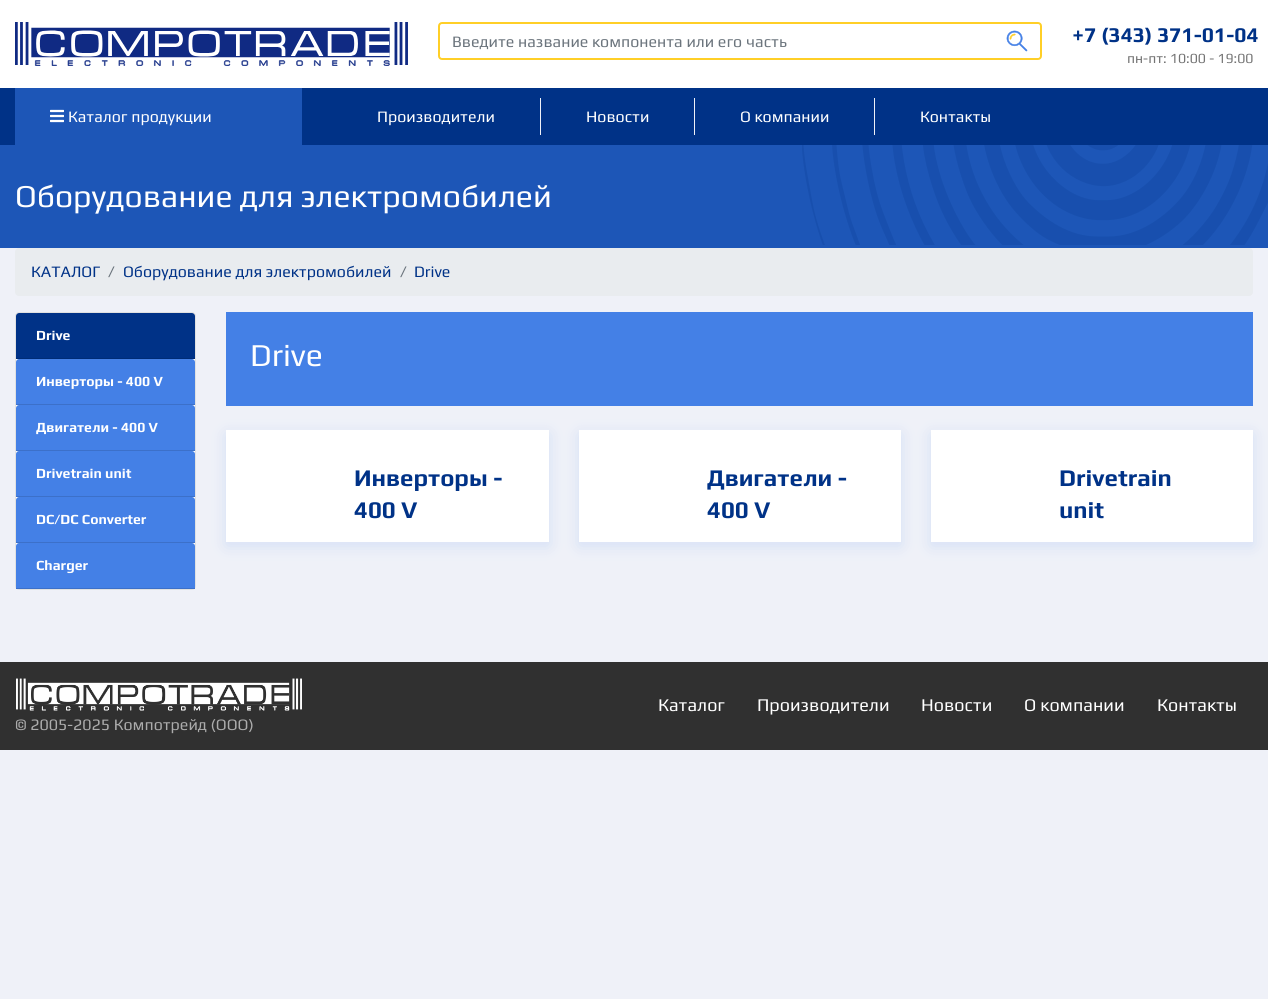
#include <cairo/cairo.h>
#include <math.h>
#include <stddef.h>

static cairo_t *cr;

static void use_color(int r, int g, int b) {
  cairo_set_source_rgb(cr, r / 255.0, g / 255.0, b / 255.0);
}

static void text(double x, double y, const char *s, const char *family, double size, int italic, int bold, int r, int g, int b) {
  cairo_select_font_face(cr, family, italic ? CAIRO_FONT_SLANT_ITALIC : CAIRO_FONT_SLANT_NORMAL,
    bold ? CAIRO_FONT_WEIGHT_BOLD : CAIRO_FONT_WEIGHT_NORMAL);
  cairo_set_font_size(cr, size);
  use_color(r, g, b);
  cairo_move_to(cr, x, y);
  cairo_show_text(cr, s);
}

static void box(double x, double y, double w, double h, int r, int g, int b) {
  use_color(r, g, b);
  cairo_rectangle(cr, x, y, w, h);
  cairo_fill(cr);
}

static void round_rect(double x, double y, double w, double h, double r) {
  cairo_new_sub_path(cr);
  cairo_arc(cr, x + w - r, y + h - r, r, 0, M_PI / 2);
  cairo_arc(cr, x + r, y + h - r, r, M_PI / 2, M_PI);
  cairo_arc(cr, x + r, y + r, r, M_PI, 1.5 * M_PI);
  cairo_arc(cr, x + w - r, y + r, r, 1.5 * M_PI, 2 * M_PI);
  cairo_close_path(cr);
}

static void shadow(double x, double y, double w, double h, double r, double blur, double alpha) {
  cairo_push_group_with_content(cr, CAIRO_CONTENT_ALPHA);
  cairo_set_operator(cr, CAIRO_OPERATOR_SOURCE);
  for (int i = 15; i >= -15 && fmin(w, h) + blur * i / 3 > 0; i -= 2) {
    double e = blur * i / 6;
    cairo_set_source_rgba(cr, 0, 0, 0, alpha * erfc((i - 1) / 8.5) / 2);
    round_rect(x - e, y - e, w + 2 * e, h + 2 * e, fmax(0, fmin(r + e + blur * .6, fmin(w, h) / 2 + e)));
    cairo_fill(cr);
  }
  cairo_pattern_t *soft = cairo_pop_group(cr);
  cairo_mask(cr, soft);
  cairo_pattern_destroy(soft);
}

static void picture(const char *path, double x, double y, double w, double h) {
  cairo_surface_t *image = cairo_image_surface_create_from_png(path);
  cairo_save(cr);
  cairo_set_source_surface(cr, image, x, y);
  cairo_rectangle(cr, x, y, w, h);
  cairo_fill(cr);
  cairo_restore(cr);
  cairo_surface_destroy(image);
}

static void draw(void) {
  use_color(239, 241, 248);
  cairo_paint(cr);
  box(0, 0, 1268, 88, 255, 255, 255);
  picture("img_01.png", 15, 22, 393, 44);
  picture("img_02.png", 1006, 30, 22, 22);
  round_rect(439, 23, 602, 36, 3);
  use_color(255, 207, 39);
  cairo_stroke(cr);
  box(0, 88, 1268, 57, 0, 50, 135);
  box(15, 88, 287, 57, 29, 86, 183);
  picture("img_03.png", 50, 109, 14, 14);
  box(540, 98, 1, 37, 239, 241, 248);
  box(694, 98, 1, 37, 239, 241, 248);
  box(874, 98, 1, 37, 239, 241, 248);
  box(0, 145, 1268, 103, 29, 86, 183);
  picture("img_04.png", 802, 145, 466, 100);
  use_color(233, 236, 239);
  round_rect(15, 248, 1238, 48, 4);
  cairo_fill(cr);
  use_color(255, 255, 255);
  round_rect(15, 312, 181, 278, 4);
  cairo_fill(cr);
  round_rect(15.5, 312.5, 180, 277, 3.5);
  cairo_set_source_rgba(cr, 0, 0, 0, 0.12);
  cairo_set_line_width(cr, 1);
  cairo_stroke(cr);
  use_color(0, 50, 135);
  cairo_new_path(cr);
  cairo_move_to(cr, 19, 313);
  cairo_line_to(cr, 192, 313);
  cairo_curve_to(cr, 193.5, 313, 195, 314.5, 195, 316);
  cairo_line_to(cr, 195, 359);
  cairo_line_to(cr, 16, 359);
  cairo_line_to(cr, 16, 316);
  cairo_curve_to(cr, 16, 314.5, 17.5, 313, 19, 313);
  cairo_close_path(cr);
  cairo_fill(cr);
  box(16, 358, 179, 1, 0, 44, 118);
  use_color(68, 128, 230);
  cairo_new_path(cr);
  cairo_move_to(cr, 19, 359);
  cairo_line_to(cr, 192, 359);
  cairo_curve_to(cr, 193.5, 359, 195, 360.5, 195, 362);
  cairo_line_to(cr, 195, 405);
  cairo_line_to(cr, 16, 405);
  cairo_line_to(cr, 16, 362);
  cairo_curve_to(cr, 16, 360.5, 17.5, 359, 19, 359);
  cairo_close_path(cr);
  cairo_fill(cr);
  box(16, 404, 179, 1, 60, 112, 201);
  use_color(68, 128, 230);
  cairo_new_path(cr);
  cairo_move_to(cr, 19, 405);
  cairo_line_to(cr, 192, 405);
  cairo_curve_to(cr, 193.5, 405, 195, 406.5, 195, 408);
  cairo_line_to(cr, 195, 451);
  cairo_line_to(cr, 16, 451);
  cairo_line_to(cr, 16, 408);
  cairo_curve_to(cr, 16, 406.5, 17.5, 405, 19, 405);
  cairo_close_path(cr);
  cairo_fill(cr);
  box(16, 450, 179, 1, 60, 112, 201);
  use_color(68, 128, 230);
  cairo_new_path(cr);
  cairo_move_to(cr, 19, 451);
  cairo_line_to(cr, 192, 451);
  cairo_curve_to(cr, 193.5, 451, 195, 452.5, 195, 454);
  cairo_line_to(cr, 195, 497);
  cairo_line_to(cr, 16, 497);
  cairo_line_to(cr, 16, 454);
  cairo_curve_to(cr, 16, 452.5, 17.5, 451, 19, 451);
  cairo_close_path(cr);
  cairo_fill(cr);
  box(16, 496, 179, 1, 60, 112, 201);
  use_color(68, 128, 230);
  cairo_new_path(cr);
  cairo_move_to(cr, 19, 497);
  cairo_line_to(cr, 192, 497);
  cairo_curve_to(cr, 193.5, 497, 195, 498.5, 195, 500);
  cairo_line_to(cr, 195, 543);
  cairo_line_to(cr, 16, 543);
  cairo_line_to(cr, 16, 500);
  cairo_curve_to(cr, 16, 498.5, 17.5, 497, 19, 497);
  cairo_close_path(cr);
  cairo_fill(cr);
  box(16, 542, 179, 1, 60, 112, 201);
  use_color(68, 128, 230);
  cairo_new_path(cr);
  cairo_move_to(cr, 19, 543);
  cairo_line_to(cr, 192, 543);
  cairo_curve_to(cr, 193.5, 543, 195, 544.5, 195, 546);
  cairo_line_to(cr, 195, 589);
  cairo_line_to(cr, 16, 589);
  cairo_line_to(cr, 16, 546);
  cairo_curve_to(cr, 16, 544.5, 17.5, 543, 19, 543);
  cairo_close_path(cr);
  cairo_fill(cr);
  box(16, 588, 179, 1, 60, 112, 201);
  box(226, 312, 1027, 94, 68, 128, 230);
  use_color(68, 128, 230);
  shadow(226, 434, 323, 112, 0, 8, 0.16);
  box(226, 430, 323, 112, 255, 255, 255);
  use_color(68, 128, 230);
  shadow(579, 434, 322, 112, 0, 8, 0.16);
  box(579, 430, 322, 112, 255, 255, 255);
  use_color(68, 128, 230);
  shadow(931, 434, 322, 112, 0, 8, 0.16);
  box(931, 430, 322, 112, 255, 255, 255);
  box(0, 662, 1268, 88, 48, 48, 48);
  picture("img_05.png", 16, 678, 286, 33);
  text(452, 47, "Введите название компонента или его часть", "Play", 16, 0, 0, 108, 117, 125);
  text(1072, 42, "+7 (343) 371-01-04", "Play", 21, 0, 1, 0, 50, 135);
  text(1127, 63, "пн-пт: 10:00 - 19:00", "Play", 14, 0, 0, 116, 116, 116);
  text(68, 122, "Каталог продукции", "Play", 16, 0, 0, 255, 255, 255);
  text(377, 122, "Производители", "Play", 16, 0, 0, 255, 255, 255);
  text(586, 122, "Новости", "Play", 16, 0, 0, 255, 255, 255);
  text(740, 122, "О компании", "Play", 16, 0, 0, 255, 255, 255);
  text(920, 122, "Контакты", "Play", 16, 0, 0, 255, 255, 255);
  text(15, 207, "Оборудование для электромобилей", "Play", 32, 0, 0, 255, 255, 255);
  text(31, 277, "КАТАЛОГ", "Play", 16, 0, 0, 0, 50, 135);
  text(108, 277, "/", "Play", 16, 0, 0, 108, 117, 125);
  text(123, 277, "Оборудование для электромобилей", "Play", 16, 0, 0, 0, 50, 135);
  text(400, 277, "/", "Play", 16, 0, 0, 108, 117, 125);
  text(414, 277, "Drive", "Play", 16, 0, 0, 0, 50, 135);
  text(36, 340, "Drive", "Play", 14, 0, 1, 255, 255, 255);
  text(36, 386, "Инверторы - 400 V", "Play", 14, 0, 1, 255, 255, 255);
  text(36, 432, "Двигатели - 400 V", "Play", 14, 0, 1, 255, 255, 255);
  text(36, 478, "Drivetrain unit", "Play", 14, 0, 1, 255, 255, 255);
  text(36, 524, "DC/DC Converter", "Play", 14, 0, 1, 255, 255, 255);
  text(36, 570, "Charger", "Play", 14, 0, 1, 255, 255, 255);
  text(250, 366, "Drive", "Play", 32, 0, 0, 255, 255, 255);
  text(354, 486, "Инверторы -", "Play", 24, 0, 1, 0, 50, 135);
  text(354, 518, "400 V", "Play", 24, 0, 1, 0, 50, 135);
  text(707, 486, "Двигатели -", "Play", 24, 0, 1, 0, 50, 135);
  text(707, 518, "400 V", "Play", 24, 0, 1, 0, 50, 135);
  text(1059, 486, "Drivetrain", "Play", 24, 0, 1, 0, 50, 135);
  text(1059, 518, "unit", "Play", 24, 0, 1, 0, 50, 135);
  text(658, 711, "Каталог", "Play", 18, 0, 0, 255, 255, 255);
  text(757, 711, "Производители", "Play", 18, 0, 0, 255, 255, 255);
  text(921, 711, "Новости", "Play", 18, 0, 0, 255, 255, 255);
  text(1024, 711, "О компании", "Play", 18, 0, 0, 255, 255, 255);
  text(1157, 711, "Контакты", "Play", 18, 0, 0, 255, 255, 255);
  text(15, 730, "© 2005-2025 Компотрейд (ООО)", "Play", 16, 0, 0, 172, 172, 172);
}

int main(void) {
  cairo_surface_t *surface = cairo_image_surface_create(CAIRO_FORMAT_RGB24, 1268, 999);
  cr = cairo_create(surface);
  cairo_font_options_t *options = cairo_font_options_create();
  cairo_font_options_set_hint_metrics(options, CAIRO_HINT_METRICS_OFF);
  cairo_font_options_set_hint_style(options, CAIRO_HINT_STYLE_NONE);
  cairo_set_font_options(cr, options);
  cairo_set_miter_limit(cr, 4);
  draw();
  cairo_surface_write_to_png(surface, "out.png");
  cairo_font_options_destroy(options);
  cairo_destroy(cr);
  cairo_surface_destroy(surface);
  return 0;
}
